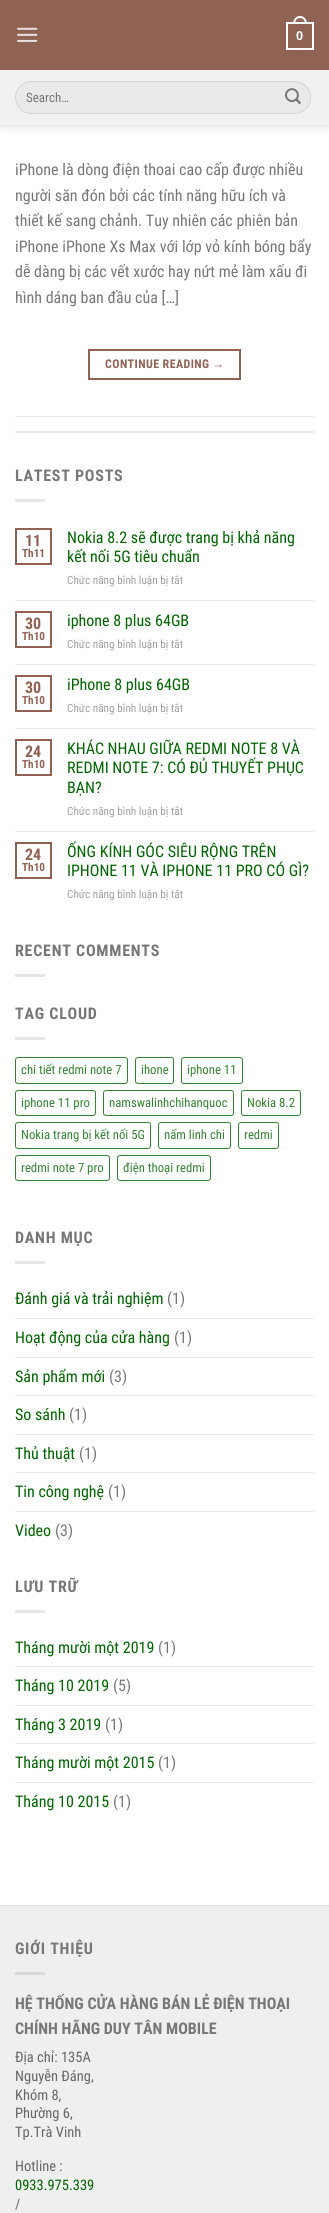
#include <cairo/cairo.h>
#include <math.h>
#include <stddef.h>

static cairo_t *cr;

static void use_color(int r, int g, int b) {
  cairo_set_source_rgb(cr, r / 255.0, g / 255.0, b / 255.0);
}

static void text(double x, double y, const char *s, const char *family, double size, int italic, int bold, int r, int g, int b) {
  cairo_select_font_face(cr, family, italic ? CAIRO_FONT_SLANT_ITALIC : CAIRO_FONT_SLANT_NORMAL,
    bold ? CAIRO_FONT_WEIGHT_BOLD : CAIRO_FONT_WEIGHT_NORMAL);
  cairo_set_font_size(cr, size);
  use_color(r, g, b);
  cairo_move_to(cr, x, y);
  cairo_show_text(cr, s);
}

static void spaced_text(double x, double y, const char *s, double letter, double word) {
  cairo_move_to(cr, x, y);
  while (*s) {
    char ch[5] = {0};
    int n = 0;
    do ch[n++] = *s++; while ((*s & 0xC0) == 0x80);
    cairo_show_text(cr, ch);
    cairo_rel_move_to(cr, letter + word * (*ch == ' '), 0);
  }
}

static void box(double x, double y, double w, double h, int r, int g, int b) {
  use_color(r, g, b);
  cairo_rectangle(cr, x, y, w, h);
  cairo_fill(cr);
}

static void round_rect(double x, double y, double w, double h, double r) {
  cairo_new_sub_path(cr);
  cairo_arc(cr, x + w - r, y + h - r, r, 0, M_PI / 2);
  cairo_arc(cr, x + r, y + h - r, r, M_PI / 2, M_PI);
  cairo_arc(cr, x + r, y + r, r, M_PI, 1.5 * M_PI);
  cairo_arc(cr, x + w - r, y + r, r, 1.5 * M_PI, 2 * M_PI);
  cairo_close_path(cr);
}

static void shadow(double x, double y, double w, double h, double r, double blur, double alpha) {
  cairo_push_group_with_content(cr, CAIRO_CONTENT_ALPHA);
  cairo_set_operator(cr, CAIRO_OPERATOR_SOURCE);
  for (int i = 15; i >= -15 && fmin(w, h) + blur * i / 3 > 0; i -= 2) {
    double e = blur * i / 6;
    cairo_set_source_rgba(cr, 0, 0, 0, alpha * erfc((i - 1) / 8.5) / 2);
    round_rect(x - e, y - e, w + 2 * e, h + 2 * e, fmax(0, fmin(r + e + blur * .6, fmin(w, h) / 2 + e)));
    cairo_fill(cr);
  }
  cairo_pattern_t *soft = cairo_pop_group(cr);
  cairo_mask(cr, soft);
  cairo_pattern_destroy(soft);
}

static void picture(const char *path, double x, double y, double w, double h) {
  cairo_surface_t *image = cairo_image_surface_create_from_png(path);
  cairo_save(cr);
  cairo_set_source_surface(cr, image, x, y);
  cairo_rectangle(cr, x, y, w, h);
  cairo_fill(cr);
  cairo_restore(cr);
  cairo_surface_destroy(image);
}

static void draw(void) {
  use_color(255, 255, 255);
  cairo_paint(cr);
  use_color(0, 0, 0);
  shadow(1, 1, 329, 125, 0, 5, 0.15);
  box(0, 0, 329, 70, 144, 98, 83);
  picture("img_01.png", 17, 27, 21, 15);
  cairo_rectangle(cr, 287, 23, 26, 26);
  use_color(255, 255, 255);
  cairo_stroke(cr);
  cairo_set_fill_rule(cr, CAIRO_FILL_RULE_EVEN_ODD);
  cairo_new_path(cr);
  cairo_move_to(cr, 300, 16);
  cairo_curve_to(cr, 304.5, 16, 307, 20, 307, 24);
  cairo_line_to(cr, 293, 24);
  cairo_curve_to(cr, 293, 20, 295.5, 16, 300, 16);
  cairo_close_path(cr);
  cairo_move_to(cr, 300, 18);
  cairo_curve_to(cr, 303.5, 18, 305, 21, 305, 24);
  cairo_line_to(cr, 295, 24);
  cairo_curve_to(cr, 295, 21, 296.5, 18, 300, 18);
  cairo_close_path(cr);
  cairo_fill(cr);
  box(0, 70, 329, 55, 241, 241, 241);
  use_color(234, 234, 234);
  round_rect(15, 81, 296, 33, 16.5);
  cairo_fill(cr);
  round_rect(15.5, 81.5, 295, 32, 16);
  cairo_set_source_rgba(cr, 0, 0, 0, 0.09);
  cairo_set_line_width(cr, 1);
  cairo_stroke(cr);
  picture("img_02.png", 285, 88, 16, 16);
  cairo_rectangle(cr, 89, 350, 151, 29);
  use_color(144, 98, 83);
  cairo_set_line_width(cr, 2);
  cairo_stroke(cr);
  box(15, 416, 299, 1, 236, 236, 236);
  box(15, 431, 299, 2, 236, 236, 236);
  box(15, 499, 30, 3, 230, 230, 230);
  cairo_rectangle(cr, 16, 529, 35, 35);
  use_color(144, 98, 83);
  cairo_stroke(cr);
  box(15, 600, 299, 1, 236, 236, 236);
  cairo_rectangle(cr, 16, 612, 35, 35);
  use_color(144, 98, 83);
  cairo_stroke(cr);
  box(15, 664, 299, 1, 236, 236, 236);
  cairo_rectangle(cr, 16, 676, 35, 35);
  use_color(144, 98, 83);
  cairo_stroke(cr);
  box(15, 728, 299, 1, 236, 236, 236);
  cairo_rectangle(cr, 16, 740, 35, 35);
  use_color(144, 98, 83);
  cairo_stroke(cr);
  box(15, 831, 299, 1, 236, 236, 236);
  cairo_rectangle(cr, 16, 843, 35, 35);
  use_color(144, 98, 83);
  cairo_stroke(cr);
  box(15, 974, 30, 3, 230, 230, 230);
  box(15, 1037, 30, 3, 230, 230, 230);
  round_rect(15.5, 1057.5, 112, 26, 2.5);
  use_color(51, 132, 51);
  cairo_set_line_width(cr, 1);
  cairo_stroke(cr);
  round_rect(135.5, 1057.5, 38, 26, 2.5);
  cairo_stroke(cr);
  round_rect(181.5, 1057.5, 61, 26, 2.5);
  cairo_stroke(cr);
  round_rect(15.5, 1090.5, 80, 25, 2.5);
  cairo_stroke(cr);
  round_rect(103.5, 1090.5, 130, 25, 2.5);
  cairo_stroke(cr);
  round_rect(241.5, 1090.5, 59, 25, 2.5);
  cairo_stroke(cr);
  round_rect(15.5, 1122.5, 135, 26, 2.5);
  cairo_stroke(cr);
  round_rect(158.5, 1122.5, 72, 26, 2.5);
  cairo_stroke(cr);
  round_rect(238.5, 1122.5, 40, 26, 2.5);
  cairo_stroke(cr);
  round_rect(15.5, 1155.5, 94, 25, 2.5);
  cairo_stroke(cr);
  round_rect(117.5, 1155.5, 93, 25, 2.5);
  cairo_stroke(cr);
  box(15, 1261, 30, 3, 230, 230, 230);
  box(15, 1318, 299, 1, 236, 236, 236);
  box(15, 1357, 299, 1, 236, 236, 236);
  box(15, 1395, 299, 1, 236, 236, 236);
  box(15, 1434, 299, 1, 236, 236, 236);
  box(15, 1472, 299, 1, 236, 236, 236);
  box(15, 1511, 299, 1, 236, 236, 236);
  box(15, 1610, 30, 3, 230, 230, 230);
  box(15, 1666, 299, 1, 236, 236, 236);
  box(15, 1705, 299, 1, 236, 236, 236);
  box(15, 1743, 299, 1, 236, 236, 236);
  box(15, 1782, 299, 1, 236, 236, 236);
  box(0, 1906, 329, 307, 239, 239, 239);
  box(0, 1905, 329, 1, 227, 227, 227);
  box(15, 1972, 30, 3, 215, 215, 215);
  box(15, 2150, 79, 1, 236, 236, 236);
  text(296, 40, "0", "Liberation Sans", 12.75, 0, 1, 255, 255, 255);
  text(26, 102, "Search…", "Roboto Condensed", 13, 0, 0, 119, 119, 119);
  text(15, 175, "iPhone là dòng điện thoai cao cấp được nhiều", "Roboto Condensed", 16, 0, 0, 119, 119, 119);
  text(15, 201, "người săn đón bởi các tính năng hữu ích và", "Roboto Condensed", 16, 0, 0, 119, 119, 119);
  text(15, 226, "thiết kế sang chảnh. Tuy nhiên các phiên bản", "Roboto Condensed", 16, 0, 0, 119, 119, 119);
  text(15, 252, "iPhone iPhone Xs Max với lớp vỏ kính bóng bẩy", "Roboto Condensed", 16, 0, 0, 119, 119, 119);
  text(15, 277, "dễ dàng bị các vết xước hay nứt mẻ làm xấu đi", "Roboto Condensed", 16, 0, 0, 119, 119, 119);
  text(15, 303, "hình dáng ban đầu của […]", "Roboto Condensed", 16, 0, 0, 119, 119, 119);
  cairo_select_font_face(cr, "Roboto Condensed", CAIRO_FONT_SLANT_NORMAL, CAIRO_FONT_WEIGHT_BOLD);
  cairo_set_font_size(cr, 12);
  use_color(144, 98, 83);
  spaced_text(105, 368, "CONTINUE READING", 0.4, 0);
  cairo_select_font_face(cr, "Liberation Sans", CAIRO_FONT_SLANT_NORMAL, CAIRO_FONT_WEIGHT_BOLD);
  spaced_text(212, 368, "→", 0.4, 0);
  cairo_select_font_face(cr, "Roboto Condensed", CAIRO_FONT_SLANT_NORMAL, CAIRO_FONT_WEIGHT_BOLD);
  cairo_set_font_size(cr, 16);
  use_color(119, 119, 119);
  spaced_text(15, 481, "LATEST POSTS", 0.75, 0);
  text(25, 546, "11", "Roboto Condensed", 16, 0, 1, 144, 98, 83);
  text(22, 557, "Th11", "Roboto Condensed", 11.25, 0, 1, 144, 98, 83);
  text(67, 543, "Nokia 8.2 sẽ được trang bị khả năng", "Roboto Condensed", 16, 0, 0, 0, 101, 0);
  text(67, 562, "kết nối 5G tiêu chuẩn", "Roboto Condensed", 16, 0, 0, 0, 101, 0);
  text(67, 584, "Chức năng bình luận bị tắt", "Roboto Condensed", 11.25, 0, 0, 160, 160, 160);
  text(25, 629, "30", "Roboto Condensed", 16, 0, 1, 144, 98, 83);
  text(22, 640, "Th10", "Roboto Condensed", 11.25, 0, 1, 144, 98, 83);
  text(67, 626, "iphone 8 plus 64GB", "Roboto Condensed", 16, 0, 0, 0, 101, 0);
  text(67, 648, "Chức năng bình luận bị tắt", "Roboto Condensed", 11.25, 0, 0, 160, 160, 160);
  text(25, 693, "30", "Roboto Condensed", 16, 0, 1, 144, 98, 83);
  text(22, 704, "Th10", "Roboto Condensed", 11.25, 0, 1, 144, 98, 83);
  text(67, 690, "iPhone 8 plus 64GB", "Roboto Condensed", 16, 0, 0, 0, 101, 0);
  text(67, 712, "Chức năng bình luận bị tắt", "Roboto Condensed", 11.25, 0, 0, 160, 160, 160);
  text(25, 757, "24", "Roboto Condensed", 16, 0, 1, 144, 98, 83);
  text(22, 768, "Th10", "Roboto Condensed", 11.25, 0, 1, 144, 98, 83);
  text(67, 754, "KHÁC NHAU GIỮA REDMI NOTE 8 VÀ", "Roboto Condensed", 16, 0, 0, 0, 101, 0);
  text(67, 773, "REDMI NOTE 7: CÓ ĐỦ THUYẾT PHỤC", "Roboto Condensed", 16, 0, 0, 0, 101, 0);
  text(67, 793, "BẠN?", "Roboto Condensed", 16, 0, 0, 0, 101, 0);
  text(67, 815, "Chức năng bình luận bị tắt", "Roboto Condensed", 11.25, 0, 0, 160, 160, 160);
  text(25, 860, "24", "Roboto Condensed", 16, 0, 1, 144, 98, 83);
  text(22, 871, "Th10", "Roboto Condensed", 11.25, 0, 1, 144, 98, 83);
  text(67, 857, "ỐNG KÍNH GÓC SIÊU RỘNG TRÊN", "Roboto Condensed", 16, 0, 0, 0, 101, 0);
  text(67, 876, "IPHONE 11 VÀ IPHONE 11 PRO CÓ GÌ?", "Roboto Condensed", 16, 0, 0, 0, 101, 0);
  text(67, 898, "Chức năng bình luận bị tắt", "Roboto Condensed", 11.25, 0, 0, 160, 160, 160);
  cairo_select_font_face(cr, "Roboto Condensed", CAIRO_FONT_SLANT_NORMAL, CAIRO_FONT_WEIGHT_BOLD);
  cairo_set_font_size(cr, 16);
  use_color(119, 119, 119);
  spaced_text(15, 956, "RECENT COMMENTS", 0.75, 0);
  spaced_text(15, 1019, "TAG CLOUD", 0.75, 0);
  text(21, 1074, "chi tiết redmi note 7", "Roboto Condensed", 12.75, 0, 0, 51, 132, 51);
  text(141, 1074, "ihone", "Roboto Condensed", 12.75, 0, 0, 51, 132, 51);
  text(187, 1074, "iphone 11", "Roboto Condensed", 12.75, 0, 0, 51, 132, 51);
  text(21, 1107, "iphone 11 pro", "Roboto Condensed", 12.75, 0, 0, 51, 132, 51);
  text(109, 1107, "namswalinhchihanquoc", "Roboto Condensed", 12.75, 0, 0, 51, 132, 51);
  text(247, 1107, "Nokia 8.2", "Roboto Condensed", 12.75, 0, 0, 51, 132, 51);
  text(21, 1139, "Nokia trang bị kết nối 5G", "Roboto Condensed", 12.75, 0, 0, 51, 132, 51);
  text(164, 1139, "nấm linh chi", "Roboto Condensed", 12.75, 0, 0, 51, 132, 51);
  text(244, 1139, "redmi", "Roboto Condensed", 12.75, 0, 0, 51, 132, 51);
  text(21, 1172, "redmi note 7 pro", "Roboto Condensed", 12.75, 0, 0, 51, 132, 51);
  text(123, 1172, "điện thoại redmi", "Roboto Condensed", 12.75, 0, 0, 51, 132, 51);
  cairo_select_font_face(cr, "Roboto Condensed", CAIRO_FONT_SLANT_NORMAL, CAIRO_FONT_WEIGHT_BOLD);
  cairo_set_font_size(cr, 16);
  use_color(119, 119, 119);
  spaced_text(15, 1243, "DANH MỤC", 0.75, 0);
  text(15, 1304, "Đánh giá và trải nghiệm", "Roboto Condensed", 16, 0, 0, 0, 101, 0);
  text(167, 1304, "(1)", "Roboto Condensed", 16, 0, 0, 119, 119, 119);
  text(15, 1343, "Hoạt động của cửa hàng", "Roboto Condensed", 16, 0, 0, 0, 101, 0);
  text(174, 1343, "(1)", "Roboto Condensed", 16, 0, 0, 119, 119, 119);
  text(15, 1382, "Sản phẩm mới", "Roboto Condensed", 16, 0, 0, 0, 101, 0);
  text(109, 1382, "(3)", "Roboto Condensed", 16, 0, 0, 119, 119, 119);
  text(15, 1420, "So sánh", "Roboto Condensed", 16, 0, 0, 0, 101, 0);
  text(69, 1420, "(1)", "Roboto Condensed", 16, 0, 0, 119, 119, 119);
  text(15, 1459, "Thủ thuật", "Roboto Condensed", 16, 0, 0, 0, 101, 0);
  text(79, 1459, "(1)", "Roboto Condensed", 16, 0, 0, 119, 119, 119);
  text(15, 1497, "Tin công nghệ", "Roboto Condensed", 16, 0, 0, 0, 101, 0);
  text(108, 1497, "(1)", "Roboto Condensed", 16, 0, 0, 119, 119, 119);
  text(15, 1536, "Video", "Roboto Condensed", 16, 0, 0, 0, 101, 0);
  text(55, 1536, "(3)", "Roboto Condensed", 16, 0, 0, 119, 119, 119);
  cairo_select_font_face(cr, "Roboto Condensed", CAIRO_FONT_SLANT_NORMAL, CAIRO_FONT_WEIGHT_BOLD);
  spaced_text(15, 1592, "LƯU TRỮ", 0.75, 0);
  text(15, 1653, "Tháng mười một 2019", "Roboto Condensed", 16, 0, 0, 0, 101, 0);
  text(158, 1653, "(1)", "Roboto Condensed", 16, 0, 0, 119, 119, 119);
  text(15, 1691, "Tháng 10 2019", "Roboto Condensed", 16, 0, 0, 0, 101, 0);
  text(113, 1691, "(5)", "Roboto Condensed", 16, 0, 0, 119, 119, 119);
  text(15, 1730, "Tháng 3 2019", "Roboto Condensed", 16, 0, 0, 0, 101, 0);
  text(105, 1730, "(1)", "Roboto Condensed", 16, 0, 0, 119, 119, 119);
  text(15, 1768, "Tháng mười một 2015", "Roboto Condensed", 16, 0, 0, 0, 101, 0);
  text(158, 1768, "(1)", "Roboto Condensed", 16, 0, 0, 119, 119, 119);
  text(15, 1807, "Tháng 10 2015", "Roboto Condensed", 16, 0, 0, 0, 101, 0);
  text(113, 1807, "(1)", "Roboto Condensed", 16, 0, 0, 119, 119, 119);
  cairo_select_font_face(cr, "Roboto Condensed", CAIRO_FONT_SLANT_NORMAL, CAIRO_FONT_WEIGHT_BOLD);
  spaced_text(15, 1954, "GIỚI THIỆU", 0.75, 0);
  text(15, 2009, "HỆ THỐNG CỬA HÀNG BÁN LẺ ĐIỆN THOẠI", "Roboto Condensed", 16, 0, 1, 119, 119, 119);
  text(15, 2034, "CHÍNH HÃNG DUY TÂN MOBILE", "Roboto Condensed", 16, 0, 1, 119, 119, 119);
  text(15, 2062, "Địa chỉ: 135A", "Roboto Condensed", 14.5, 0, 0, 102, 102, 102);
  text(15, 2081, "Nguyễn Đáng,", "Roboto Condensed", 14.5, 0, 0, 102, 102, 102);
  text(15, 2100, "Khóm 8,", "Roboto Condensed", 14.5, 0, 0, 102, 102, 102);
  text(15, 2118, "Phường 6,", "Roboto Condensed", 14.5, 0, 0, 102, 102, 102);
  text(15, 2137, "Tp.Trà Vinh", "Roboto Condensed", 14.5, 0, 0, 102, 102, 102);
  text(15, 2171, "Hotline :", "Roboto Condensed", 14.5, 0, 0, 102, 102, 102);
  text(15, 2190, "0933.975.339", "Roboto Condensed", 14.5, 0, 0, 0, 101, 0);
  text(15, 2209, "/", "Roboto Condensed", 14.5, 0, 0, 102, 102, 102);
}

int main(void) {
  cairo_surface_t *surface = cairo_image_surface_create(CAIRO_FORMAT_RGB24, 329, 2213);
  cr = cairo_create(surface);
  cairo_font_options_t *options = cairo_font_options_create();
  cairo_font_options_set_hint_metrics(options, CAIRO_HINT_METRICS_OFF);
  cairo_font_options_set_hint_style(options, CAIRO_HINT_STYLE_NONE);
  cairo_set_font_options(cr, options);
  cairo_set_miter_limit(cr, 4);
  draw();
  cairo_surface_write_to_png(surface, "out.png");
  cairo_font_options_destroy(options);
  cairo_destroy(cr);
  cairo_surface_destroy(surface);
  return 0;
}
